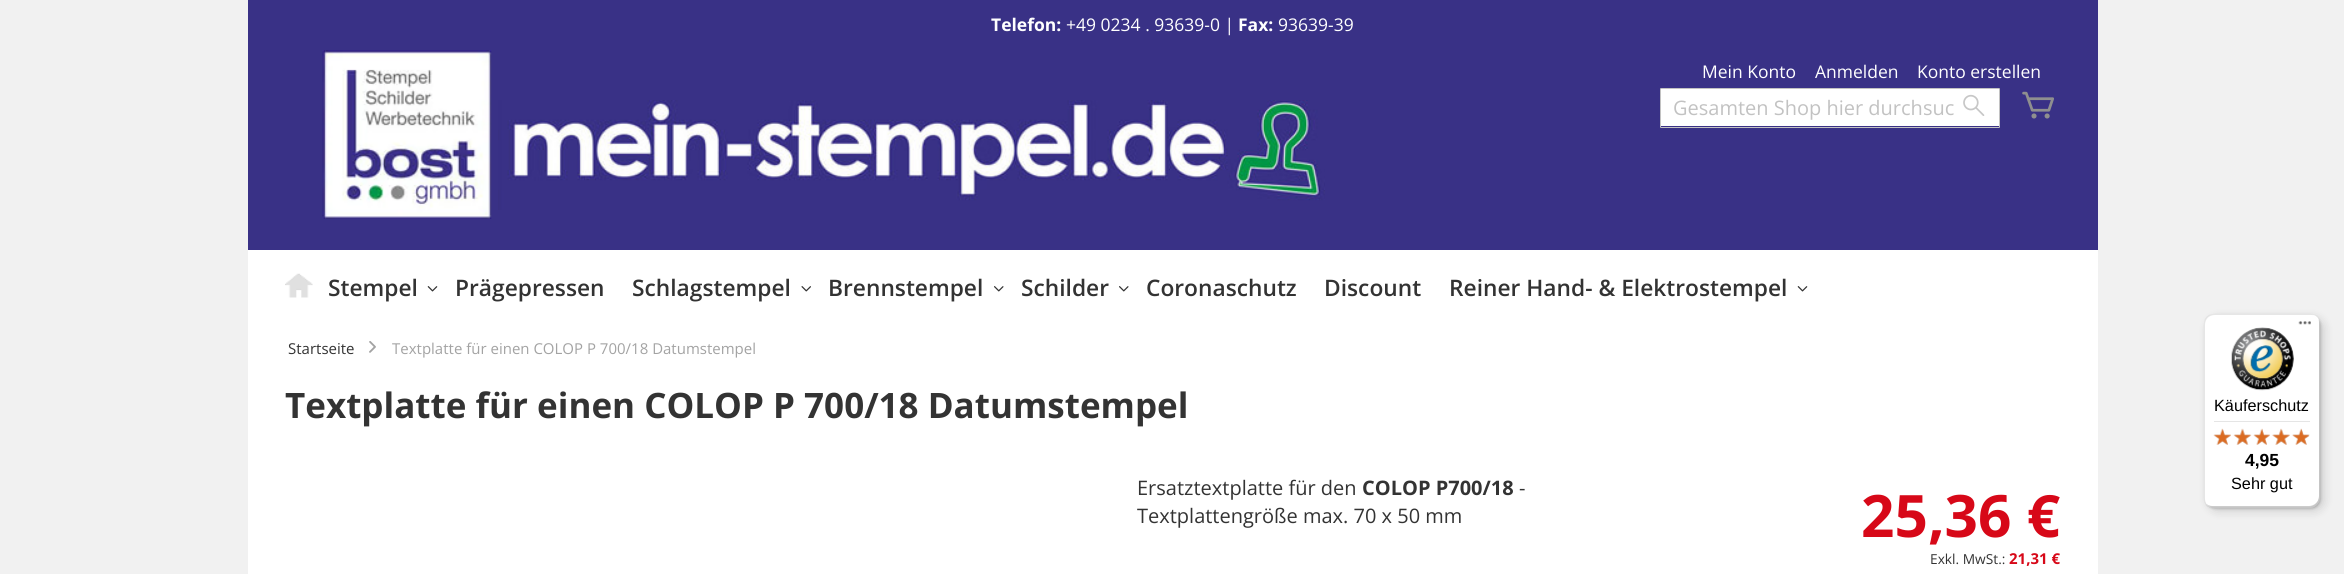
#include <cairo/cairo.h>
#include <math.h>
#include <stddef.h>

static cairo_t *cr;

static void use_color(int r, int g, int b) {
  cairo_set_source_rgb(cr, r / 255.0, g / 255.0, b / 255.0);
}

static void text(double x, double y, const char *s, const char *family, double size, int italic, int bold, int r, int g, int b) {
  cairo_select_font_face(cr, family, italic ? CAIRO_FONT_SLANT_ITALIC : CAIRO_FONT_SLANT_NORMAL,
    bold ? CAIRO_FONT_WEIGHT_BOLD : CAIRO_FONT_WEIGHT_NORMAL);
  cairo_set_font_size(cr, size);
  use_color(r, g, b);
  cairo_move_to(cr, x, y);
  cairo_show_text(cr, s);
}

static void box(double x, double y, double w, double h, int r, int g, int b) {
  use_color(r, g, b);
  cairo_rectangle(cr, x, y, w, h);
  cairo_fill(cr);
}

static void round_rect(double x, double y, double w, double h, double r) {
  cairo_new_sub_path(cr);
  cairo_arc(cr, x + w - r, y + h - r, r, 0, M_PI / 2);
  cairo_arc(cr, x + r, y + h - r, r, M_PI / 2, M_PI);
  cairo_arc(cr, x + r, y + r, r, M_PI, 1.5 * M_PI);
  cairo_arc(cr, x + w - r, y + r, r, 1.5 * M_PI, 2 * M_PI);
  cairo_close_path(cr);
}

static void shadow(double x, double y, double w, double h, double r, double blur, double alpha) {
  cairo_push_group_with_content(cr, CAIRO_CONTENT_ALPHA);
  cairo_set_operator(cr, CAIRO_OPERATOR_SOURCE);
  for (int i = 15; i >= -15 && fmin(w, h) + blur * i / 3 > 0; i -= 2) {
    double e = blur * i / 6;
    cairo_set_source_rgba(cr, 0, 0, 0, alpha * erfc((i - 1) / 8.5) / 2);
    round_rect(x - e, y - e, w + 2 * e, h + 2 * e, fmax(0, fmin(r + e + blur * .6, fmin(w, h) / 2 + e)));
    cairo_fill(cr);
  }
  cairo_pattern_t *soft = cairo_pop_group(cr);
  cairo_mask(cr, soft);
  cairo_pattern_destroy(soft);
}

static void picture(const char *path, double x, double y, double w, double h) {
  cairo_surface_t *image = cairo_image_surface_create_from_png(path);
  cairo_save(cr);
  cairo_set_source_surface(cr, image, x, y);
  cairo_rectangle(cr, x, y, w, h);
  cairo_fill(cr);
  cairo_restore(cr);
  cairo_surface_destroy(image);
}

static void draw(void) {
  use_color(241, 241, 241);
  cairo_paint(cr);
  box(248, 0, 1850, 250, 57, 49, 134);
  picture("img_01.png", 498, 100, 827, 110);
  picture("img_02.png", 322, 50, 170, 169);
  box(1661, 89, 338, 37, 255, 255, 255);
  round_rect(1660.5, 88.5, 339, 39, 0.5);
  use_color(194, 194, 194);
  cairo_set_line_width(cr, 1);
  cairo_stroke(cr);
  picture("img_03.png", 1963, 94, 22, 22);
  picture("img_04.png", 2022, 91, 32, 28);
  box(248, 250, 1850, 324, 255, 255, 255);
  picture("img_05.png", 285, 273, 28, 25);
  picture("img_06.png", 427, 286, 11, 6);
  picture("img_07.png", 801, 286, 10, 6);
  picture("img_08.png", 994, 286, 10, 6);
  picture("img_08.png", 1119, 286, 10, 6);
  picture("img_06.png", 1797, 286, 11, 6);
  picture("img_09.png", 369, 341, 7, 12);
  use_color(0, 0, 0);
  shadow(2208, 318, 116, 193, 10, 5, 0.15);
  shadow(2205, 315, 116, 194, 10, 1, 0.15);
  use_color(255, 255, 255);
  round_rect(2204, 314, 116, 194, 10);
  cairo_fill(cr);
  cairo_set_source_rgba(cr, 0, 0, 0, 0.1);
  cairo_new_path(cr);
  cairo_move_to(cr, 2215, 315);
  cairo_line_to(cr, 2311, 315);
  cairo_curve_to(cr, 2313, 315, 2315, 315, 2316, 316);
  cairo_curve_to(cr, 2315, 315, 2312, 314, 2310, 314);
  cairo_line_to(cr, 2214, 314);
  cairo_curve_to(cr, 2208, 314, 2204, 318, 2204, 324);
  cairo_line_to(cr, 2204, 498);
  cairo_curve_to(cr, 2204, 501, 2205, 504, 2208, 506);
  cairo_curve_to(cr, 2206, 504, 2205, 501, 2205, 499);
  cairo_line_to(cr, 2205, 325);
  cairo_curve_to(cr, 2205, 319, 2209, 315, 2215, 315);
  cairo_close_path(cr);
  cairo_fill(cr);
  cairo_set_source_rgba(cr, 0, 0, 0, 0.2);
  cairo_new_path(cr);
  cairo_move_to(cr, 2206, 504);
  cairo_curve_to(cr, 2208, 506, 2211, 508, 2214, 508);
  cairo_line_to(cr, 2310, 508);
  cairo_curve_to(cr, 2316, 508, 2320, 504, 2320, 498);
  cairo_line_to(cr, 2320, 324);
  cairo_curve_to(cr, 2320, 322, 2319, 320, 2318, 318);
  cairo_curve_to(cr, 2319, 319, 2319, 321, 2319, 322);
  cairo_line_to(cr, 2319, 496);
  cairo_curve_to(cr, 2319, 502, 2314, 506, 2309, 506);
  cairo_line_to(cr, 2212, 506);
  cairo_curve_to(cr, 2210, 506, 2208, 505, 2206, 504);
  cairo_close_path(cr);
  cairo_fill(cr);
  cairo_set_source_rgba(cr, 0.196, 0.196, 0.196, 0.2);
  cairo_new_path(cr);
  cairo_move_to(cr, 2206, 505);
  cairo_curve_to(cr, 2208, 507, 2211, 508, 2214, 508);
  cairo_line_to(cr, 2310, 508);
  cairo_curve_to(cr, 2316, 508, 2320, 504, 2320, 498);
  cairo_line_to(cr, 2320, 324);
  cairo_curve_to(cr, 2320, 322, 2319, 319, 2318, 318);
  cairo_curve_to(cr, 2319, 319, 2319, 321, 2319, 323);
  cairo_line_to(cr, 2319, 497);
  cairo_curve_to(cr, 2319, 502, 2315, 507, 2309, 507);
  cairo_line_to(cr, 2213, 507);
  cairo_curve_to(cr, 2210, 507, 2208, 506, 2206, 505);
  cairo_close_path(cr);
  cairo_fill(cr);
  cairo_set_source_rgba(cr, 1, 1, 1, 0.3);
  cairo_new_path(cr);
  cairo_move_to(cr, 2205, 503);
  cairo_curve_to(cr, 2207, 506, 2210, 508, 2214, 508);
  cairo_line_to(cr, 2310, 508);
  cairo_curve_to(cr, 2316, 508, 2320, 504, 2320, 498);
  cairo_line_to(cr, 2320, 324);
  cairo_curve_to(cr, 2320, 321, 2319, 318, 2316, 316);
  cairo_curve_to(cr, 2318, 318, 2319, 321, 2319, 323);
  cairo_line_to(cr, 2319, 497);
  cairo_curve_to(cr, 2319, 502, 2315, 507, 2309, 507);
  cairo_line_to(cr, 2213, 507);
  cairo_curve_to(cr, 2210, 507, 2207, 505, 2205, 503);
  cairo_close_path(cr);
  cairo_fill(cr);
  picture("img_10.png", 2298, 321, 13, 4);
  picture("img_11.png", 2231, 327, 63, 64);
  box(2214, 421, 96, 1, 229, 229, 229);
  picture("img_17.png", 2214, 429, 17, 16);
  picture("img_12.png", 2213, 428, 18, 17);
  picture("img_18.png", 2234, 429, 17, 16);
  picture("img_13.png", 2233, 428, 19, 17);
  picture("img_19.png", 2254, 429, 16, 16);
  picture("img_14.png", 2253, 428, 17, 17);
  picture("img_20.png", 2272, 429, 18, 16);
  picture("img_15.png", 2272, 428, 18, 17);
  picture("img_21.png", 2292, 429, 18, 16);
  picture("img_16.png", 2292, 428, 17, 17);
  text(991, 31, "Telefon:", "Open Sans", 17.5, 0, 1, 255, 255, 255);
  text(1066, 31, "+49 0234 . 93639-0 |", "Open Sans", 17.5, 0, 0, 255, 255, 255);
  text(1238, 31, "Fax:", "Open Sans", 17.5, 0, 1, 255, 255, 255);
  text(1278, 31, "93639-39", "Open Sans", 17.5, 0, 0, 255, 255, 255);
  text(1702, 78, "Mein Konto", "Open Sans", 17.5, 0, 0, 255, 255, 255);
  text(1815, 78, "Anmelden", "Open Sans", 17.5, 0, 0, 255, 255, 255);
  text(1917, 78, "Konto erstellen", "Open Sans", 17.5, 0, 0, 255, 255, 255);
  text(1673, 115, "Gesamten Shop hier durchsuc", "Open Sans", 20, 0, 0, 194, 194, 194);
  text(328, 296, "Stempel", "Open Sans SemiBold", 22.75, 0, 0, 51, 51, 51);
  text(455, 296, "Prägepressen", "Open Sans SemiBold", 22.75, 0, 0, 51, 51, 51);
  text(632, 296, "Schlagstempel", "Open Sans SemiBold", 22.75, 0, 0, 51, 51, 51);
  text(828, 296, "Brennstempel", "Open Sans SemiBold", 22.75, 0, 0, 51, 51, 51);
  text(1021, 296, "Schilder", "Open Sans SemiBold", 22.75, 0, 0, 51, 51, 51);
  text(1146, 296, "Coronaschutz", "Open Sans SemiBold", 22.75, 0, 0, 51, 51, 51);
  text(1324, 296, "Discount", "Open Sans SemiBold", 22.75, 0, 0, 51, 51, 51);
  text(1449, 296, "Reiner Hand- & Elektrostempel", "Open Sans SemiBold", 22.75, 0, 0, 51, 51, 51);
  text(288, 354, "Startseite", "Open Sans", 15, 0, 0, 51, 51, 51);
  text(392, 354, "Textplatte für einen COLOP P 700/18 Datumstempel", "Open Sans", 15, 0, 0, 163, 163, 163);
  text(285, 418, "Textplatte für einen COLOP P 700/18 Datumstempel", "Open Sans", 35, 0, 1, 51, 51, 51);
  text(1137, 495, "Ersatztextplatte für den", "Open Sans", 20, 0, 0, 51, 51, 51);
  text(1362, 495, "COLOP P700/18", "Open Sans", 20, 0, 1, 51, 51, 51);
  text(1519, 495, "-", "Open Sans", 20, 0, 0, 51, 51, 51);
  text(1137, 523, "Textplattengröße max. 70 x 50 mm", "Open Sans", 20, 0, 0, 51, 51, 51);
  text(1861, 537, "25,36 €", "Open Sans", 58.5, 0, 1, 215, 8, 24);
  text(1930, 564, "Exkl. MwSt.:", "Open Sans", 13.75, 0, 0, 51, 51, 51);
  text(2009, 564, "21,31 €", "Open Sans", 15, 0, 1, 215, 8, 24);
  text(2214, 411, "Käuferschutz", "Liberation Sans", 16.25, 0, 0, 0, 0, 0);
  text(2245, 466, "4,95", "Liberation Sans", 17.5, 0, 1, 0, 0, 0);
  text(2231, 489, "Sehr gut", "Liberation Sans", 16.25, 0, 0, 0, 0, 0);
}

int main(void) {
  cairo_surface_t *surface = cairo_image_surface_create(CAIRO_FORMAT_RGB24, 2344, 574);
  cr = cairo_create(surface);
  cairo_font_options_t *options = cairo_font_options_create();
  cairo_font_options_set_hint_metrics(options, CAIRO_HINT_METRICS_OFF);
  cairo_font_options_set_hint_style(options, CAIRO_HINT_STYLE_NONE);
  cairo_set_font_options(cr, options);
  cairo_set_miter_limit(cr, 4);
  draw();
  cairo_surface_write_to_png(surface, "out.png");
  cairo_font_options_destroy(options);
  cairo_destroy(cr);
  cairo_surface_destroy(surface);
  return 0;
}
